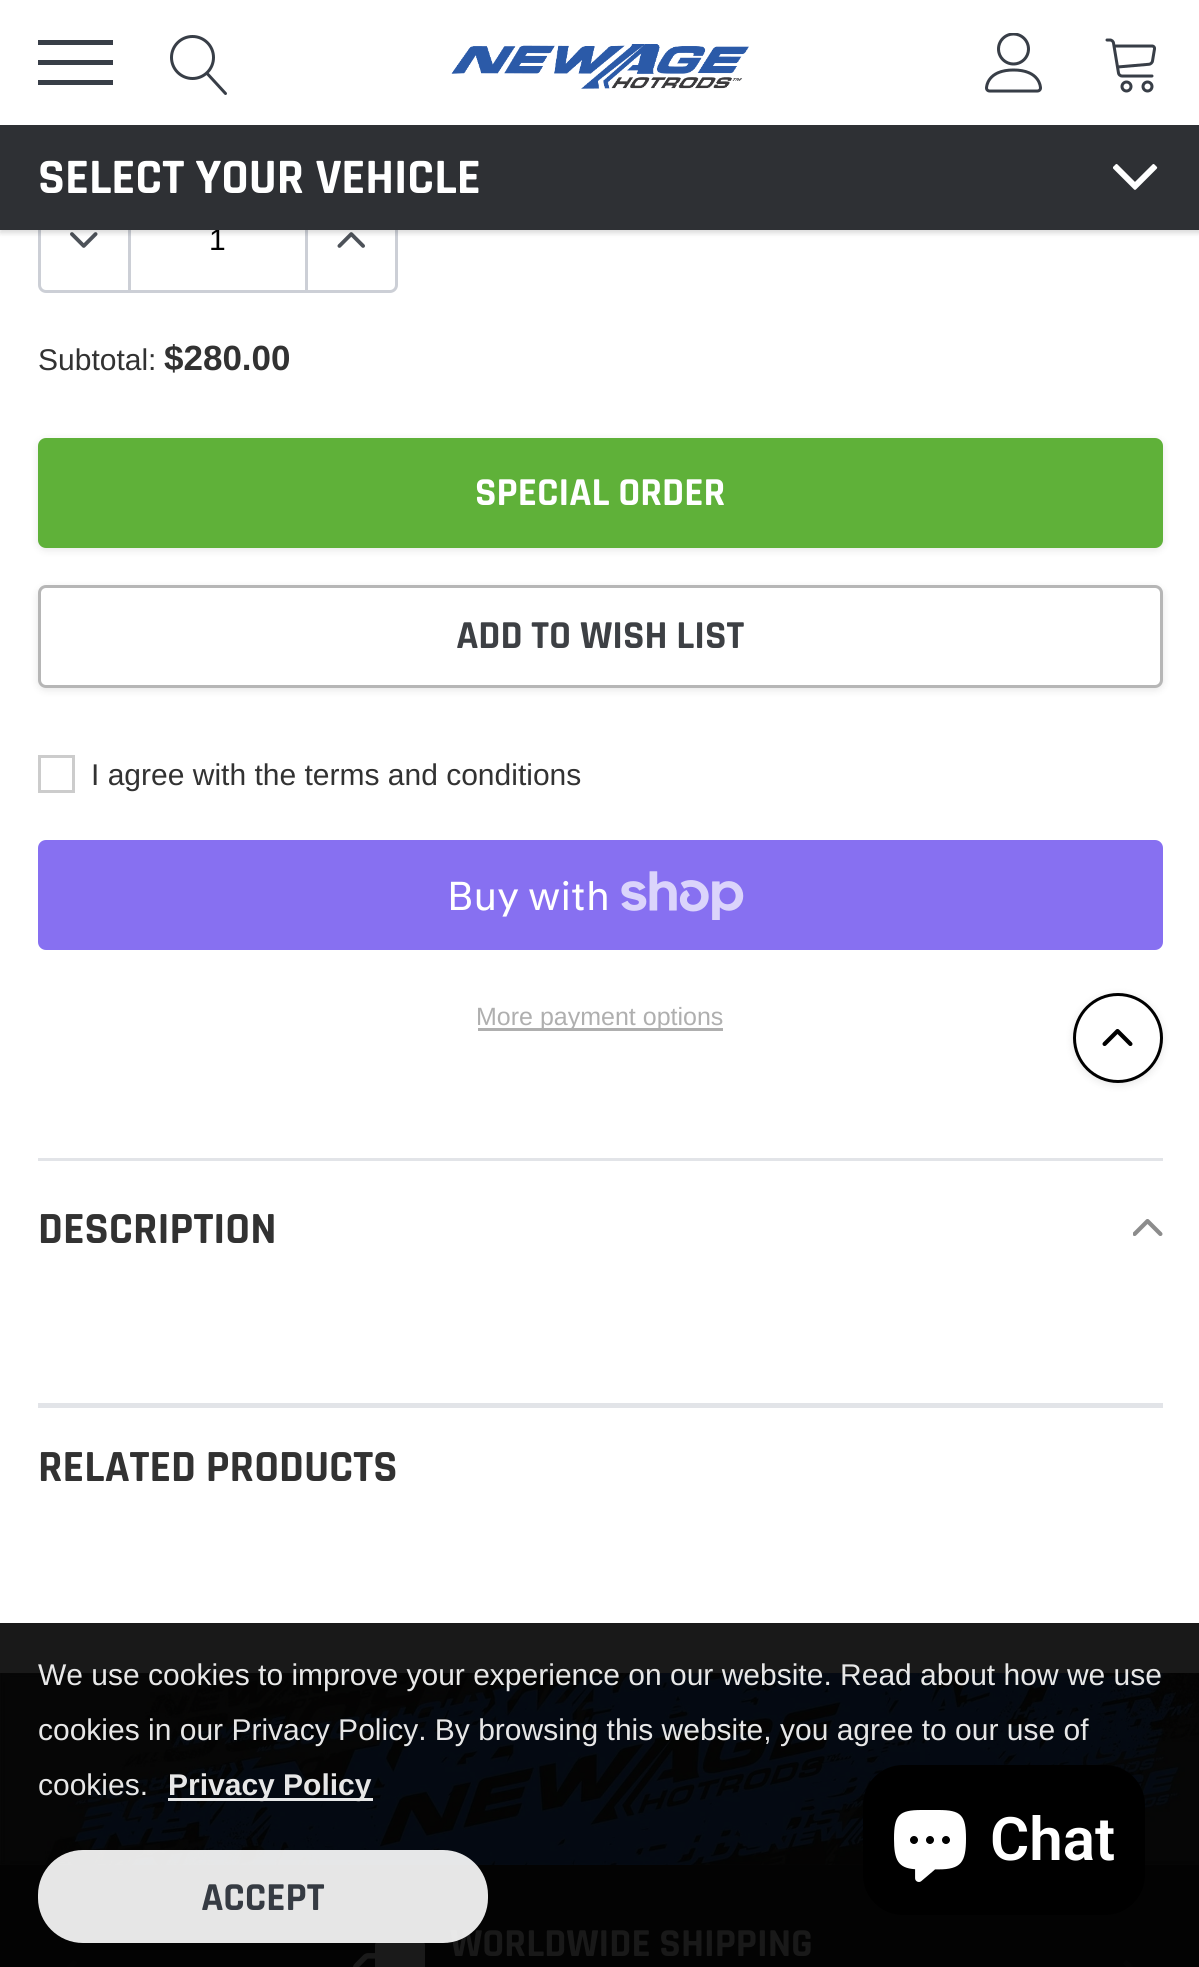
#include <cairo/cairo.h>
#include <math.h>
#include <stddef.h>

static cairo_t *cr;

static void use_color(int r, int g, int b) {
  cairo_set_source_rgb(cr, r / 255.0, g / 255.0, b / 255.0);
}

static void text(double x, double y, const char *s, const char *family, double size, int italic, int bold, int r, int g, int b) {
  cairo_select_font_face(cr, family, italic ? CAIRO_FONT_SLANT_ITALIC : CAIRO_FONT_SLANT_NORMAL,
    bold ? CAIRO_FONT_WEIGHT_BOLD : CAIRO_FONT_WEIGHT_NORMAL);
  cairo_set_font_size(cr, size);
  use_color(r, g, b);
  cairo_move_to(cr, x, y);
  cairo_show_text(cr, s);
}

static void box(double x, double y, double w, double h, int r, int g, int b) {
  use_color(r, g, b);
  cairo_rectangle(cr, x, y, w, h);
  cairo_fill(cr);
}

static void round_rect(double x, double y, double w, double h, double r) {
  cairo_new_sub_path(cr);
  cairo_arc(cr, x + w - r, y + h - r, r, 0, M_PI / 2);
  cairo_arc(cr, x + r, y + h - r, r, M_PI / 2, M_PI);
  cairo_arc(cr, x + r, y + r, r, M_PI, 1.5 * M_PI);
  cairo_arc(cr, x + w - r, y + r, r, 1.5 * M_PI, 2 * M_PI);
  cairo_close_path(cr);
}

static void shadow(double x, double y, double w, double h, double r, double blur, double alpha) {
  cairo_push_group_with_content(cr, CAIRO_CONTENT_ALPHA);
  cairo_set_operator(cr, CAIRO_OPERATOR_SOURCE);
  for (int i = 15; i >= -15 && fmin(w, h) + blur * i / 3 > 0; i -= 2) {
    double e = blur * i / 6;
    cairo_set_source_rgba(cr, 0, 0, 0, alpha * erfc((i - 1) / 8.5) / 2);
    round_rect(x - e, y - e, w + 2 * e, h + 2 * e, fmax(0, fmin(r + e + blur * .6, fmin(w, h) / 2 + e)));
    cairo_fill(cr);
  }
  cairo_pattern_t *soft = cairo_pop_group(cr);
  cairo_mask(cr, soft);
  cairo_pattern_destroy(soft);
}

static void picture(const char *path, double x, double y, double w, double h) {
  cairo_surface_t *image = cairo_image_surface_create_from_png(path);
  cairo_save(cr);
  cairo_set_source_surface(cr, image, x, y);
  cairo_rectangle(cr, x, y, w, h);
  cairo_fill(cr);
  cairo_restore(cr);
  cairo_surface_destroy(image);
}

static void draw(void) {
  use_color(255, 255, 255);
  cairo_paint(cr);
  round_rect(39.5, 189.5, 357, 102, 6.5);
  use_color(204, 207, 214);
  cairo_set_line_width(cr, 3);
  cairo_stroke(cr);
  use_color(255, 255, 255);
  round_rect(130, 190, 175, 100, 8);
  cairo_fill(cr);
  box(128, 230, 3, 60, 204, 207, 214);
  picture("img_06.png", 70, 232, 28, 16);
  box(305, 230, 3, 60, 204, 207, 214);
  picture("img_07.png", 337, 232, 28, 16);
  use_color(0, 0, 0);
  shadow(0, 3, 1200, 230, 0, 2.5, 0.15);
  box(0, 0, 1199, 125, 255, 255, 255);
  box(38, 60, 75, 5, 56, 62, 71);
  box(38, 40, 75, 5, 56, 62, 71);
  box(38, 80, 75, 5, 56, 62, 71);
  picture("img_01.png", 170, 35, 57, 60);
  picture("img_02.png", 451, 44, 298, 45);
  picture("img_03.png", 985, 33, 57, 60);
  picture("img_04.png", 1105, 38, 51, 55);
  box(0, 1623, 1199, 50, 25, 25, 25);
  use_color(0, 0, 0);
  shadow(38, 440, 1125, 110, 8, 4, 0.1);
  use_color(95, 177, 57);
  round_rect(39.5, 439.5, 1122, 107, 6.5);
  cairo_fill_preserve(cr);
  cairo_stroke(cr);
  use_color(0, 0, 0);
  shadow(38, 588, 1125, 102, 8, 4, 0.1);
  use_color(255, 255, 255);
  round_rect(39.5, 586.5, 1122, 100, 6.5);
  cairo_fill_preserve(cr);
  use_color(182, 182, 182);
  cairo_stroke(cr);
  cairo_rectangle(cr, 39.5, 756.5, 34, 35);
  use_color(204, 204, 204);
  cairo_stroke(cr);
  use_color(135, 112, 241);
  round_rect(38, 840, 1125, 110, 8);
  cairo_fill(cr);
  picture("img_08.png", 621, 871, 123, 49);
  box(478, 1028, 245, 3, 175, 175, 175);
  box(38, 1403, 1125, 5, 226, 228, 232);
  box(38, 1158, 1125, 3, 226, 228, 232);
  picture("img_09.png", 1133, 1219, 30, 17);
  picture("img_10.png", 0, 1673, 1199, 192);
  use_color(0, 0, 0);
  shadow(1073, 995, 90, 90, 45, 4, 0.1);
  use_color(255, 255, 255);
  cairo_arc(cr, 1118, 1038, 43.5, 0, 2 * M_PI);
  cairo_fill_preserve(cr);
  use_color(0, 0, 0);
  cairo_stroke(cr);
  picture("img_11.png", 1102, 1029, 31, 17);
  box(0, 1865, 1199, 102, 3, 3, 3);
  picture("img_12.png", 353, 1941, 72, 26);
  picture("img_13.png", 67, 1960, 10, 7);
  picture("img_14.png", 1123, 1960, 10, 7);
  cairo_set_source_rgba(cr, 1, 1, 1, 0.9);
  cairo_rectangle(cr, 168, 1798, 205, 3);
  cairo_fill(cr);
  use_color(0, 0, 0);
  round_rect(863, 1765, 282, 150, 40);
  cairo_fill(cr);
  picture("img_15.png", 894, 1810, 72, 72);
  text(209, 250, "1", "Arimo", 30, 0, 0, 0, 0, 0);
  box(0, 125, 1199, 105, 46, 48, 52);
  picture("img_05.png", 1113, 164, 45, 26);
  text(38, 193, "SELECT YOUR VEHICLE", "Rajdhani", 50, 0, 1, 255, 255, 255);
  text(38, 370, "Subtotal:", "Arimo", 30, 0, 0, 50, 50, 50);
  text(164, 370, "$280.00", "Arimo", 35, 0, 1, 50, 50, 50);
  text(475, 505, "SPECIAL ORDER", "Rajdhani", 40, 0, 1, 255, 255, 255);
  text(456, 648, "ADD TO WISH LIST", "Rajdhani", 40, 0, 1, 61, 64, 68);
  text(91, 785, "I agree with the terms and conditions", "Arimo", 30, 0, 0, 50, 50, 50);
  text(447, 910, "Buy with", "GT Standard", 40, 0, 0, 255, 255, 255);
  text(476, 1025, "More payment options", "Arimo", 25, 0, 0, 175, 175, 175);
  text(38, 1243, "DESCRIPTION", "Rajdhani", 45, 0, 1, 50, 50, 50);
  text(38, 1481, "RELATED PRODUCTS", "Rajdhani", 45, 0, 1, 50, 50, 50);
  text(450, 1956, "WORLDWIDE SHIPPING", "Rajdhani", 40, 0, 1, 25, 25, 25);
  text(38, 1685, "We use cookies to improve your experience on our website. Read about how we use", "Arimo", 30, 0, 0, 231, 231, 231);
  text(38, 1740, "cookies in our Privacy Policy. By browsing this website, you agree to our use of", "Arimo", 30, 0, 0, 231, 231, 231);
  text(38, 1795, "cookies.", "Arimo", 30, 0, 0, 231, 231, 231);
  text(168, 1795, "Privacy Policy", "Arimo", 30, 0, 1, 231, 231, 231);
  cairo_set_source_rgba(cr, 1, 1, 1, 0.9);
  round_rect(38, 1850, 450, 93, 45);
  cairo_fill(cr);
  text(201, 1910, "ACCEPT", "Rajdhani", 40, 0, 1, 54, 59, 67);
  text(990, 1860, "Chat", "Roboto SemiBold", 60, 0, 0, 255, 255, 255);
}

int main(void) {
  cairo_surface_t *surface = cairo_image_surface_create(CAIRO_FORMAT_RGB24, 1199, 1967);
  cr = cairo_create(surface);
  cairo_font_options_t *options = cairo_font_options_create();
  cairo_font_options_set_hint_metrics(options, CAIRO_HINT_METRICS_OFF);
  cairo_font_options_set_hint_style(options, CAIRO_HINT_STYLE_NONE);
  cairo_set_font_options(cr, options);
  cairo_set_miter_limit(cr, 4);
  draw();
  cairo_surface_write_to_png(surface, "out.png");
  cairo_font_options_destroy(options);
  cairo_destroy(cr);
  cairo_surface_destroy(surface);
  return 0;
}
